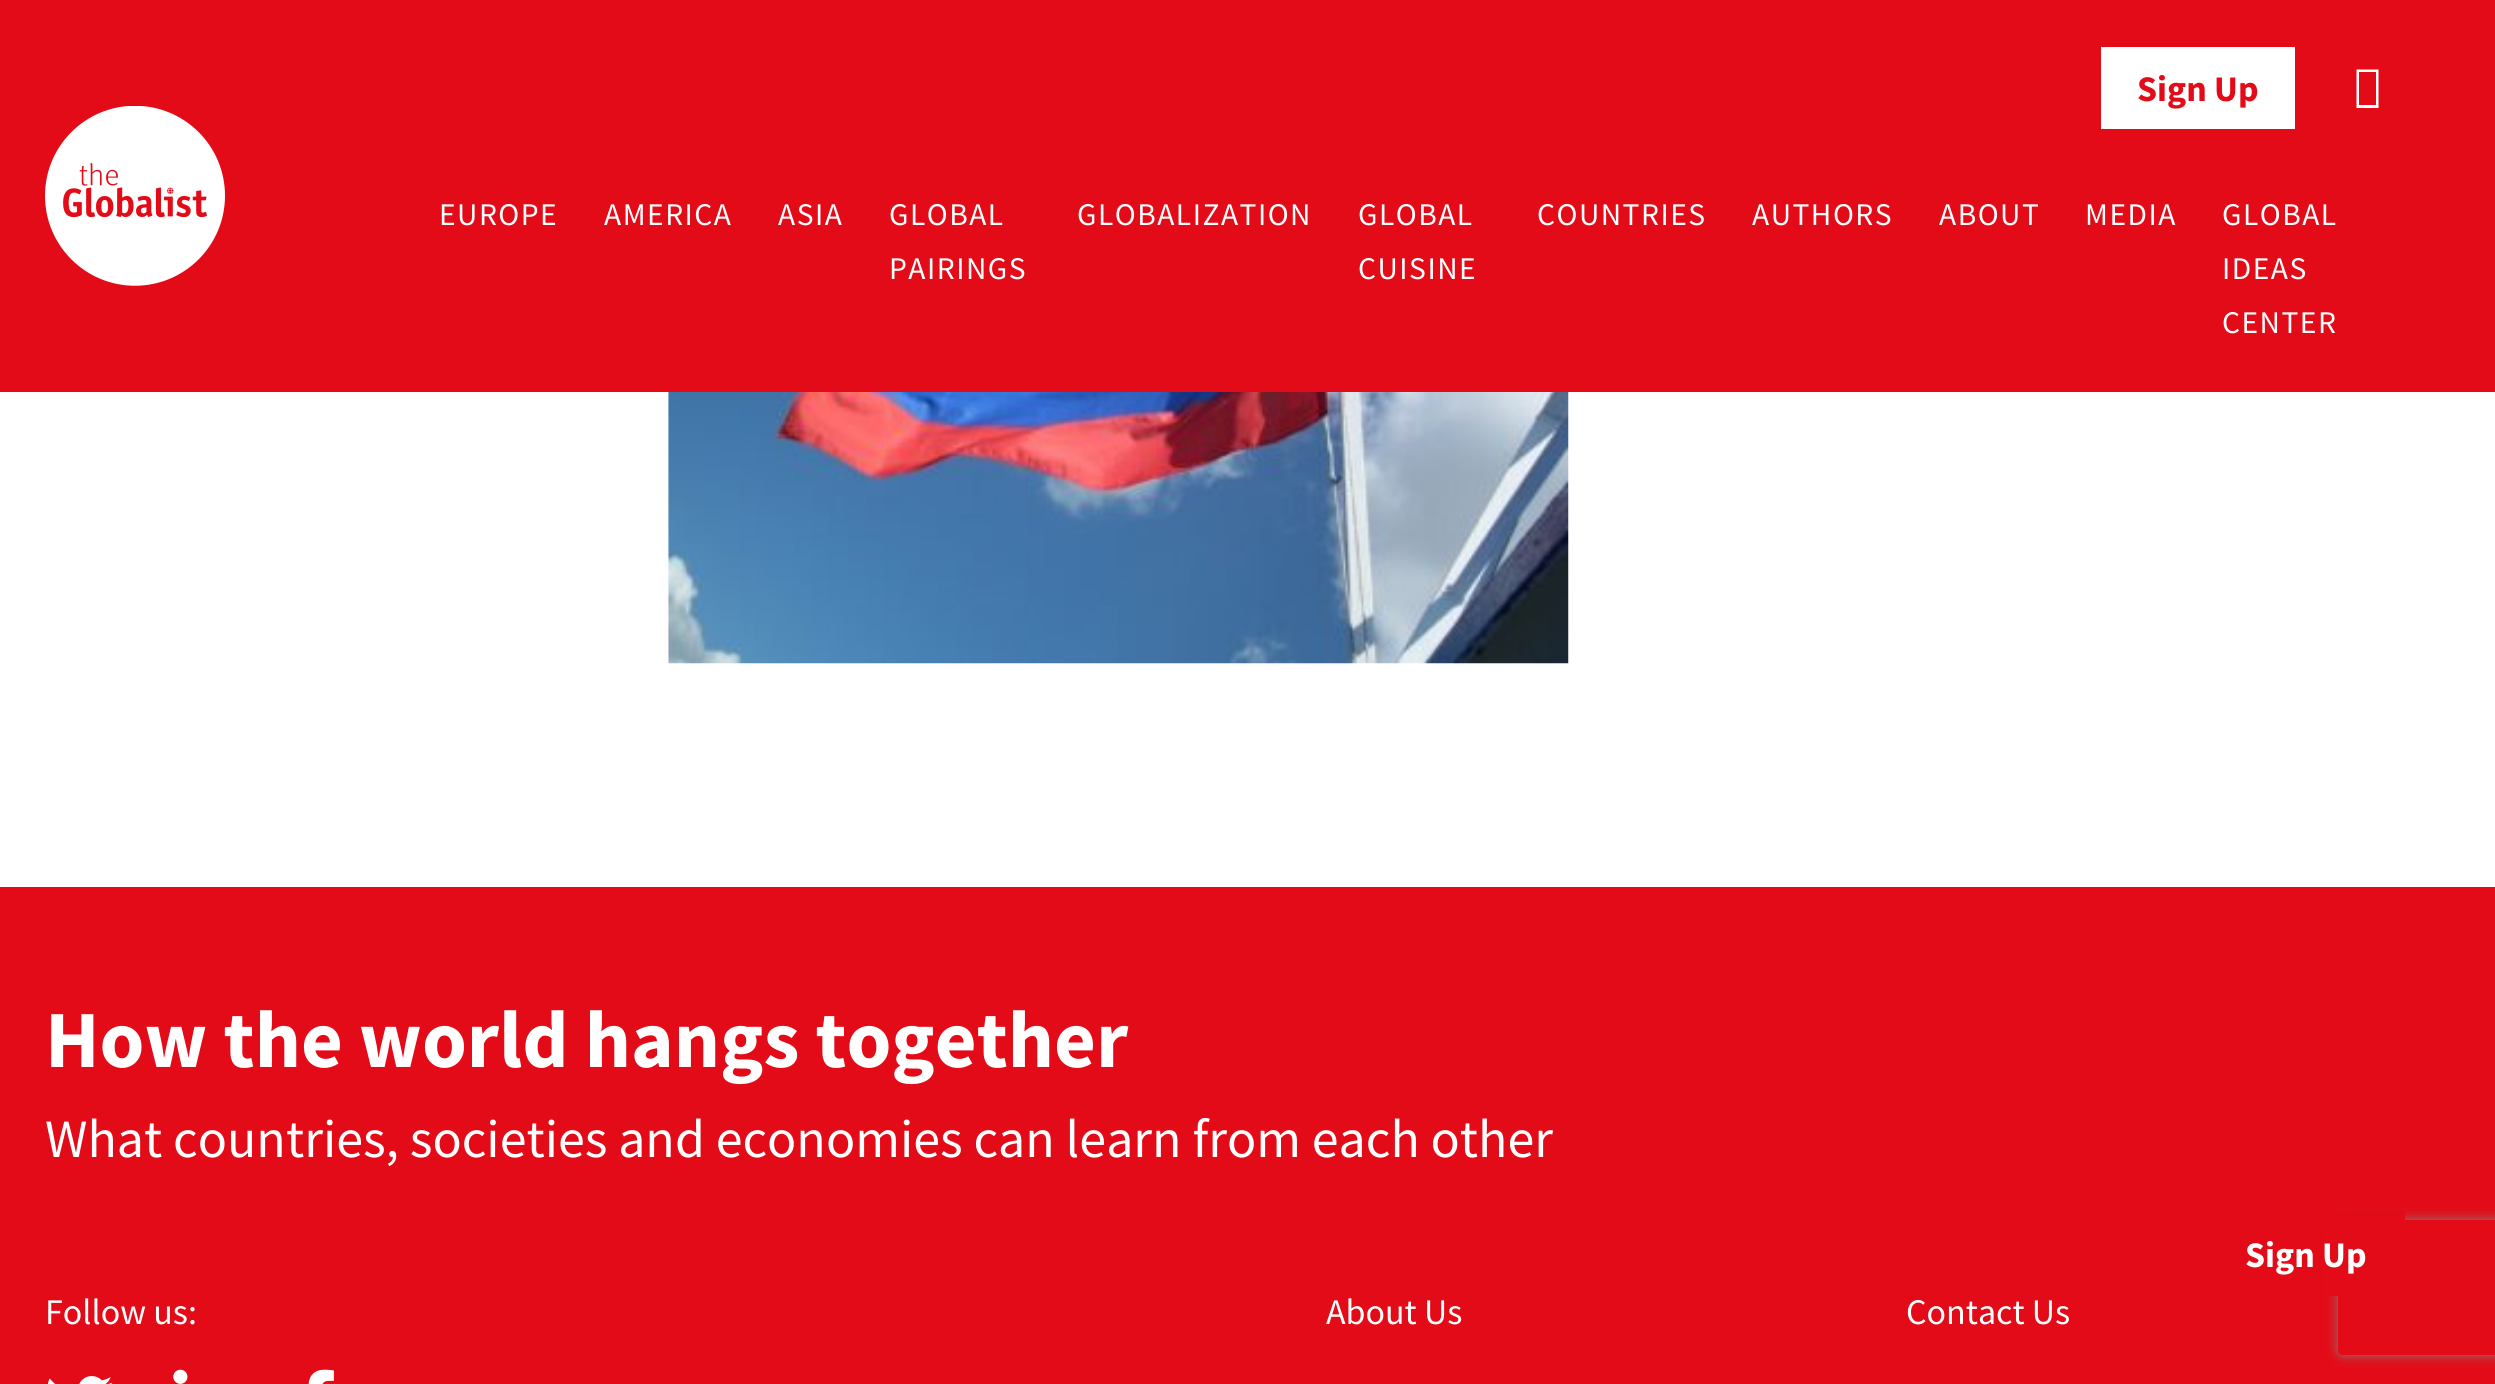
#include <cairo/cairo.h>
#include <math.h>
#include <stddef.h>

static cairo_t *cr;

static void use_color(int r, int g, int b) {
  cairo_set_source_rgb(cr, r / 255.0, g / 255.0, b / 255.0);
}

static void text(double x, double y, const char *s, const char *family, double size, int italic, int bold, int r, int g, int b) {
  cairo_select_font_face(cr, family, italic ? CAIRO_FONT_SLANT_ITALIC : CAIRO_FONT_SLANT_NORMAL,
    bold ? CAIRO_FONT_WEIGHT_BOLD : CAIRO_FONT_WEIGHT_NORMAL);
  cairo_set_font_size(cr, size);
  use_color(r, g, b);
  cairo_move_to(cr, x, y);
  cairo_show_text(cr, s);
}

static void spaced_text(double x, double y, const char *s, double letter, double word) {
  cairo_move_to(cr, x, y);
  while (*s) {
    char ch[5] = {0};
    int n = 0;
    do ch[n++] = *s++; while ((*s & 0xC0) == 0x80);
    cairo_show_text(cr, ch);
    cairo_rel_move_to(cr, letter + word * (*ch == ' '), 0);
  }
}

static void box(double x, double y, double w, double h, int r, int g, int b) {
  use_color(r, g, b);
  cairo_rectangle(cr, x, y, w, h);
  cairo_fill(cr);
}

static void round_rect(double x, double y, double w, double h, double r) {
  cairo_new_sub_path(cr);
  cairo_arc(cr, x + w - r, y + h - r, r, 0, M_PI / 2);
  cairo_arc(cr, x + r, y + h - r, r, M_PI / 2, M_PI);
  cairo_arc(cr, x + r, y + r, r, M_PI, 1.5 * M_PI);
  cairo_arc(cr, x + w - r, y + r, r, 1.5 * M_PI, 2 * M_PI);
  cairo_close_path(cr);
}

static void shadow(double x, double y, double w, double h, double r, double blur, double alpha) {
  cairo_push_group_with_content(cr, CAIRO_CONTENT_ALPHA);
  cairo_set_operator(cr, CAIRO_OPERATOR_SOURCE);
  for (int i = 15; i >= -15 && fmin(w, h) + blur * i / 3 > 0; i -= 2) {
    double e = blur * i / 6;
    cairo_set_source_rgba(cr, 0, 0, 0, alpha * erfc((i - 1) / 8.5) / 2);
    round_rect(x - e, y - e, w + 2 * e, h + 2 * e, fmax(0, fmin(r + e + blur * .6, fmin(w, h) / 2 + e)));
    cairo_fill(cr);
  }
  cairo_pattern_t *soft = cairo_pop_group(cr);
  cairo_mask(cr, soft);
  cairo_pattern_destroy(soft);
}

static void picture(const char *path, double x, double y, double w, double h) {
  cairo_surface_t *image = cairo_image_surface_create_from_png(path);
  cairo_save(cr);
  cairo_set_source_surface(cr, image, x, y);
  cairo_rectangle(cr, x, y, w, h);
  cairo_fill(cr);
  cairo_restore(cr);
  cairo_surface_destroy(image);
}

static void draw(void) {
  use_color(255, 255, 255);
  cairo_paint(cr);
  box(0, 0, 2495, 392, 227, 11, 23);
  picture("img_01.png", 45, 106, 180, 180);
  box(2101, 47, 194, 82, 255, 255, 255);
  cairo_new_path(cr);
  cairo_move_to(cr, 2356.5, 108);
  cairo_line_to(cr, 2356.5, 69.5);
  cairo_line_to(cr, 2378.5, 69.5);
  cairo_line_to(cr, 2378.5, 108);
  cairo_close_path(cr);
  cairo_move_to(cr, 2359, 105);
  cairo_line_to(cr, 2376, 105);
  cairo_line_to(cr, 2376, 72);
  cairo_line_to(cr, 2359, 72);
  cairo_close_path(cr);
  cairo_fill(cr);
  picture("img_02.png", 668, 392, 901, 272);
  box(0, 887, 2495, 497, 227, 11, 23);
  picture("img_03.png", 47, 1376, 66, 8);
  picture("img_04.png", 173, 1369, 15, 15);
  picture("img_05.png", 308, 1369, 26, 15);
  cairo_save(cr);
  cairo_set_fill_rule(cr, CAIRO_FILL_RULE_EVEN_ODD);
  cairo_new_path(cr);
  cairo_move_to(cr, 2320, 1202);
  cairo_line_to(cr, 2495, 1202);
  cairo_line_to(cr, 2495, 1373);
  cairo_line_to(cr, 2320, 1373);
  cairo_close_path(cr);
  cairo_move_to(cr, 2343, 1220);
  cairo_line_to(cr, 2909, 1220);
  cairo_curve_to(cr, 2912, 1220, 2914, 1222, 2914, 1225);
  cairo_line_to(cr, 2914, 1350);
  cairo_curve_to(cr, 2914, 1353, 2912, 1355, 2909, 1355);
  cairo_line_to(cr, 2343, 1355);
  cairo_curve_to(cr, 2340, 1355, 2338, 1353, 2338, 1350);
  cairo_line_to(cr, 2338, 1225);
  cairo_curve_to(cr, 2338, 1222, 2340, 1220, 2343, 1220);
  cairo_close_path(cr);
  cairo_clip(cr);
  use_color(128, 128, 128);
  shadow(2338, 1220, 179, 135, 5, 5.5, 1);
  cairo_restore(cr);
  box(2327, 1211, 78, 85, 227, 11, 23);
  text(2137, 101, "Sign Up", "Source Sans Pro", 36, 0, 1, 227, 11, 23);
  cairo_select_font_face(cr, "Source Sans Pro", CAIRO_FONT_SLANT_NORMAL, CAIRO_FONT_WEIGHT_NORMAL);
  cairo_set_font_size(cr, 31.5);
  use_color(255, 255, 255);
  spaced_text(439, 225, "EUROPE", 1.5, 0);
  spaced_text(604, 225, "AMERICA", 1.5, 0);
  spaced_text(778, 225, "ASIA", 1.5, 0);
  spaced_text(889, 225, "GLOBAL", 1.5, 0);
  spaced_text(889, 279, "PAIRINGS", 1.5, 0);
  spaced_text(1077, 225, "GLOBALIZATION", 1.5, 0);
  spaced_text(1358, 225, "GLOBAL", 1.5, 0);
  spaced_text(1358, 279, "CUISINE", 1.5, 0);
  spaced_text(1537, 225, "COUNTRIES", 1.5, 0);
  spaced_text(1752, 225, "AUTHORS", 1.5, 0);
  spaced_text(1939, 225, "ABOUT", 1.5, 0);
  spaced_text(2085, 225, "MEDIA", 1.5, 0);
  spaced_text(2222, 225, "GLOBAL", 1.5, 0);
  spaced_text(2222, 279, "IDEAS", 1.5, 0);
  spaced_text(2222, 333, "CENTER", 1.5, 0);
  text(45, 1067, "How the world hangs together", "Source Sans Pro", 81, 0, 1, 255, 255, 255);
  text(45, 1157, "What countries, societies and economies can learn from each other", "Source Sans Pro", 54, 0, 0, 255, 255, 255);
  text(45, 1324, "Follow us:", "Source Sans Pro", 36, 0, 0, 255, 255, 255);
  text(1326, 1324, "About Us", "Source Sans Pro", 36, 0, 0, 255, 255, 255);
  text(1906, 1324, "Contact Us", "Source Sans Pro", 36, 0, 0, 255, 255, 255);
  text(2245, 1267, "Sign Up", "Source Sans Pro", 36, 0, 1, 255, 255, 255);
}

int main(void) {
  cairo_surface_t *surface = cairo_image_surface_create(CAIRO_FORMAT_RGB24, 2495, 1384);
  cr = cairo_create(surface);
  cairo_font_options_t *options = cairo_font_options_create();
  cairo_font_options_set_hint_metrics(options, CAIRO_HINT_METRICS_OFF);
  cairo_font_options_set_hint_style(options, CAIRO_HINT_STYLE_NONE);
  cairo_set_font_options(cr, options);
  cairo_set_miter_limit(cr, 4);
  draw();
  cairo_surface_write_to_png(surface, "out.png");
  cairo_font_options_destroy(options);
  cairo_destroy(cr);
  cairo_surface_destroy(surface);
  return 0;
}
